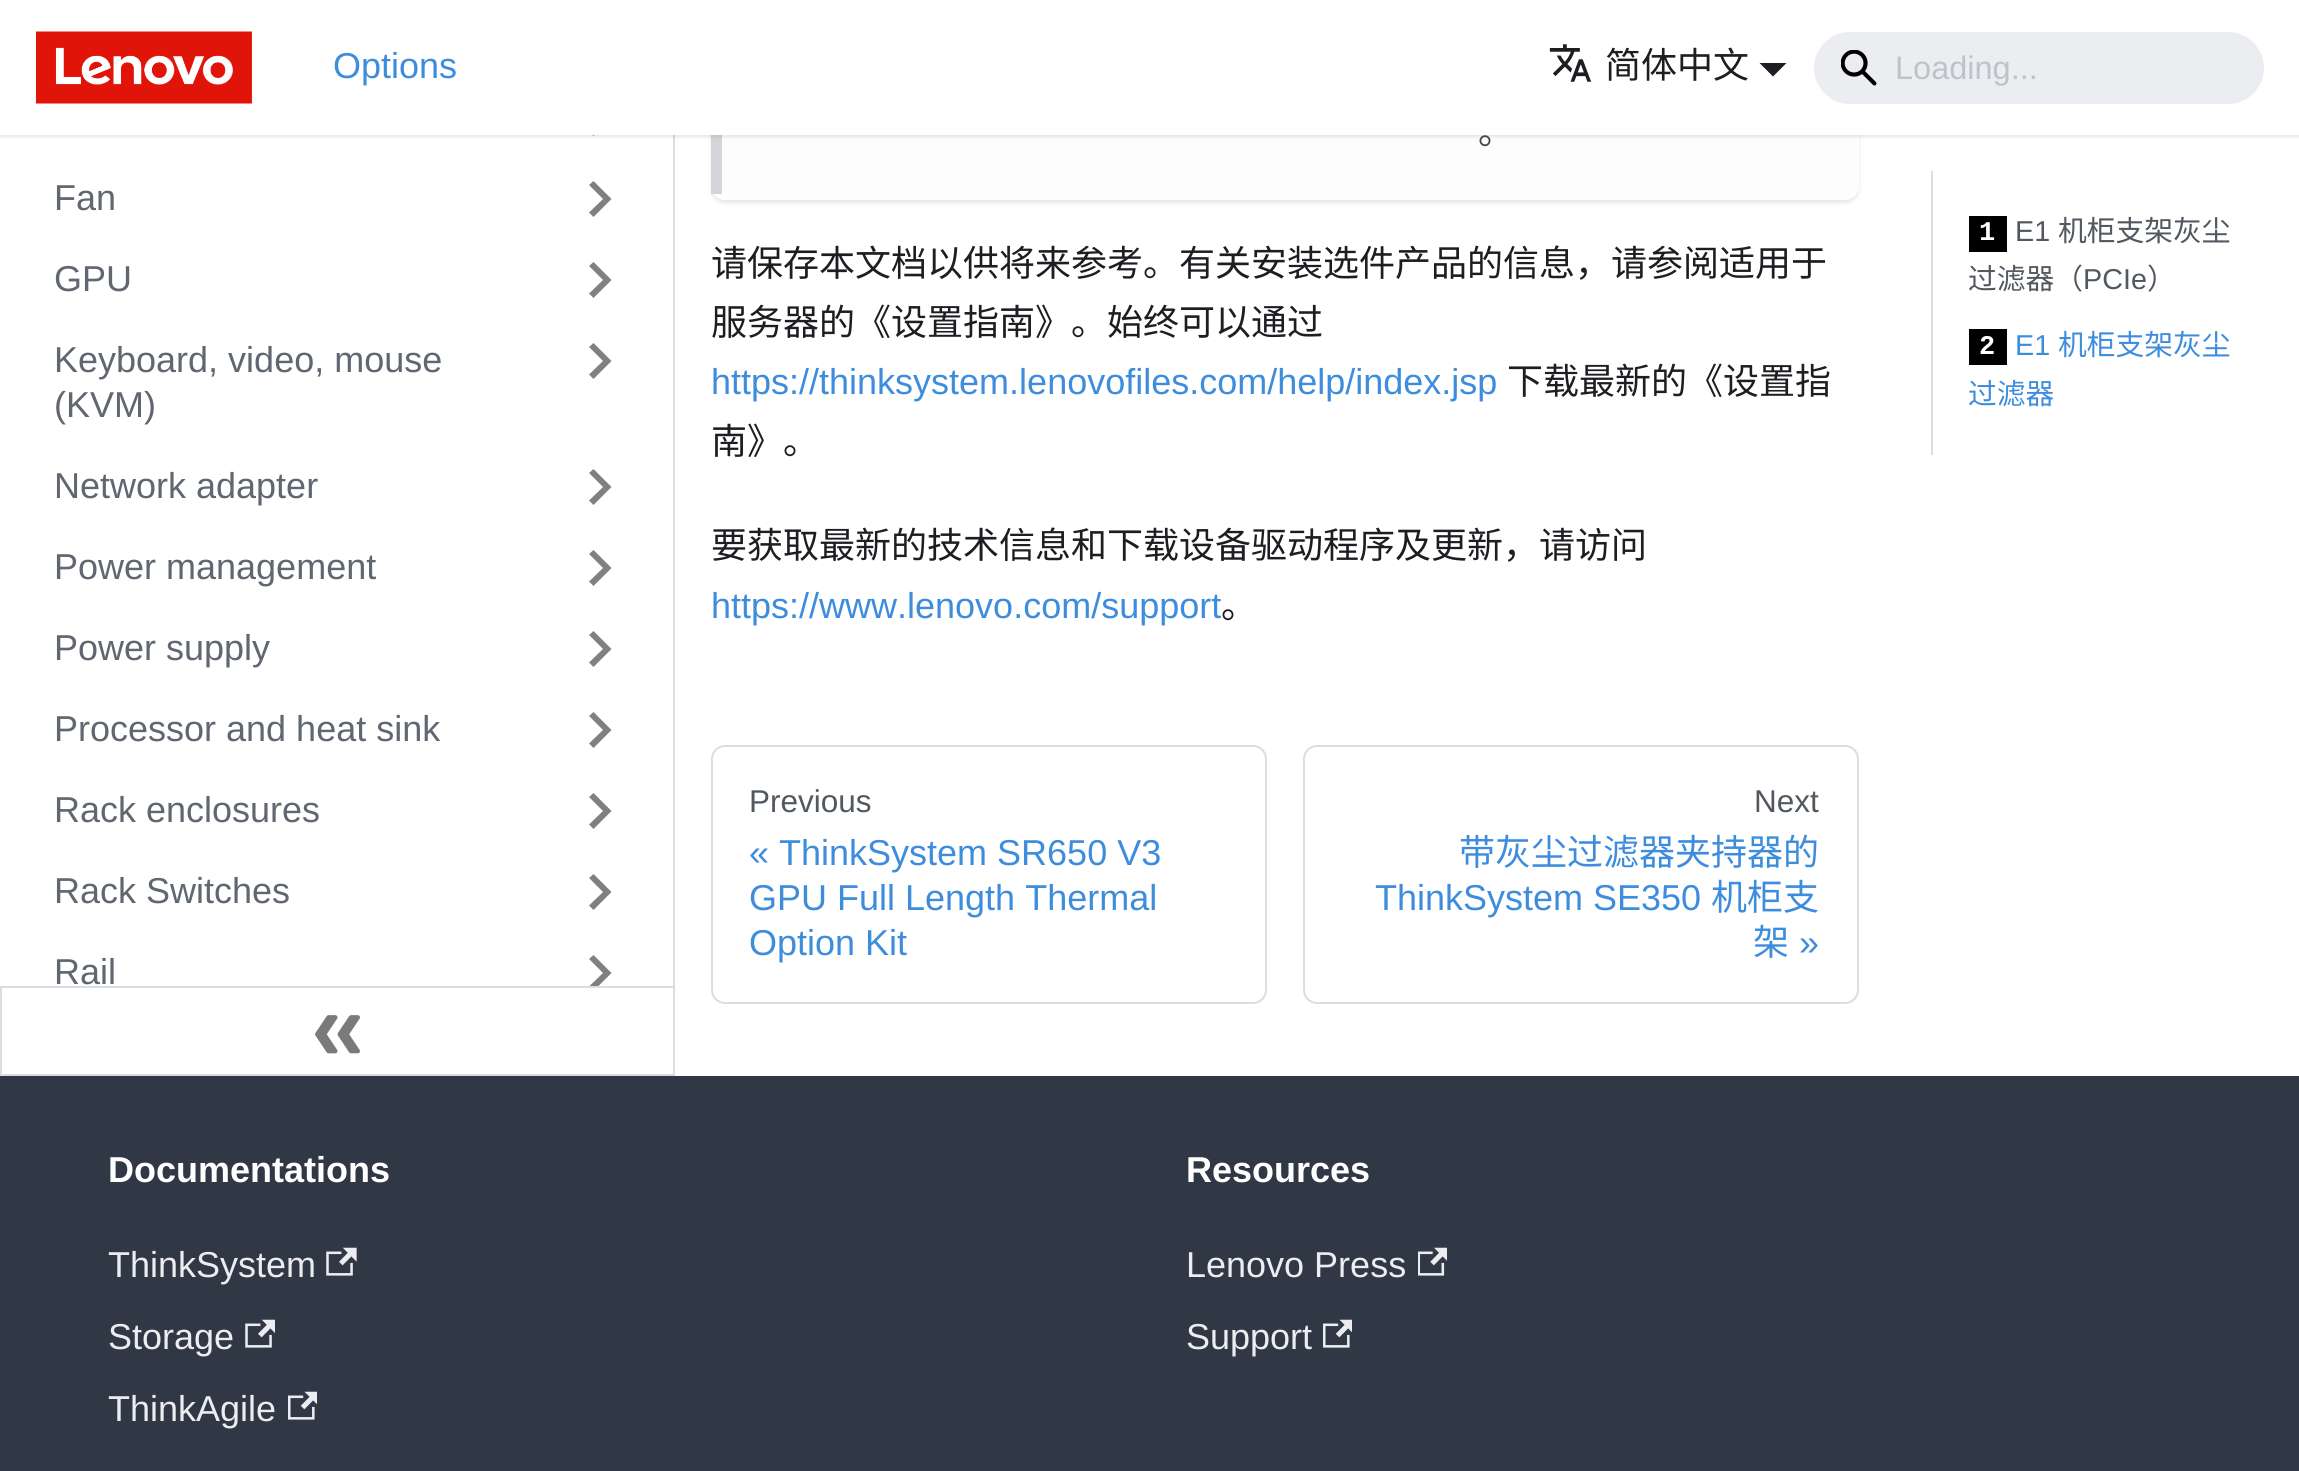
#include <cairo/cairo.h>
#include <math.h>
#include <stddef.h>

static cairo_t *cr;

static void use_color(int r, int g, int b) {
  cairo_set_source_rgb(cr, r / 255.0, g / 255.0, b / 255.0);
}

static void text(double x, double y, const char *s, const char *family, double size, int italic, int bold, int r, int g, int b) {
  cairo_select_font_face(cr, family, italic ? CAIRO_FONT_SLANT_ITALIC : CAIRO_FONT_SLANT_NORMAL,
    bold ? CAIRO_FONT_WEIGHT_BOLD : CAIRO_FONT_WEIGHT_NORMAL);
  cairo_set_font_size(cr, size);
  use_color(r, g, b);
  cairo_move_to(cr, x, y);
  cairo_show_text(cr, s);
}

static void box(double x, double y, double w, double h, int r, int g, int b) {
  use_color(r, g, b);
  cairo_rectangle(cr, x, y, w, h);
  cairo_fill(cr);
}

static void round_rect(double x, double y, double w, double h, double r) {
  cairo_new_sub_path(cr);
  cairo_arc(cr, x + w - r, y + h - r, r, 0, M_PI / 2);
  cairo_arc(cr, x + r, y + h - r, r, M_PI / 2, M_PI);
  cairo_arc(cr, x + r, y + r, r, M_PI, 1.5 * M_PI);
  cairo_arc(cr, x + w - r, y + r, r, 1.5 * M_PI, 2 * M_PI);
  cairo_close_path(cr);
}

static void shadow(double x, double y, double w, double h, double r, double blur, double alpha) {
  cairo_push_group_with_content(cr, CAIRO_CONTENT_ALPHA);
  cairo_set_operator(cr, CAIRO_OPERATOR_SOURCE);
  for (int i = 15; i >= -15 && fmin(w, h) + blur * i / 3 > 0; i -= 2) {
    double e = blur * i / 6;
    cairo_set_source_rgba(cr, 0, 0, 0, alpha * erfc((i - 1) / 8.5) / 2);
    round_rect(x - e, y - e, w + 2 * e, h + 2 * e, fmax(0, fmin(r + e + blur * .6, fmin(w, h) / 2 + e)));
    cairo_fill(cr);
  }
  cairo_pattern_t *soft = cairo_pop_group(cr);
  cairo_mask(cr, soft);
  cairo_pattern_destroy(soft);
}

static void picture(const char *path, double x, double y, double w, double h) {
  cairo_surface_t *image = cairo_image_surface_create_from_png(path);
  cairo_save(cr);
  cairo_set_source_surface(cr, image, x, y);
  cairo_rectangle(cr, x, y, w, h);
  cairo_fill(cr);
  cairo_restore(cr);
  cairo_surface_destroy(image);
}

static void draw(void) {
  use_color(255, 255, 255);
  cairo_paint(cr);
  box(673, 135, 2, 851, 218, 221, 225);
  use_color(128, 128, 128);
  cairo_new_path(cr);
  cairo_move_to(cr, 589, 104);
  cairo_line_to(cr, 603, 118);
  cairo_line_to(cr, 589, 131.5);
  cairo_line_to(cr, 593.5, 136);
  cairo_line_to(cr, 611.5, 118);
  cairo_line_to(cr, 593.5, 100);
  cairo_close_path(cr);
  cairo_fill(cr);
  cairo_save(cr);
  cairo_set_fill_rule(cr, CAIRO_FILL_RULE_EVEN_ODD);
  cairo_new_path(cr);
  cairo_move_to(cr, 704, 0);
  cairo_line_to(cr, 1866, 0);
  cairo_line_to(cr, 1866, 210);
  cairo_line_to(cr, 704, 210);
  cairo_close_path(cr);
  cairo_move_to(cr, 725, -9);
  cairo_line_to(cr, 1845, -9);
  cairo_curve_to(cr, 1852.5, -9, 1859, -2.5, 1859, 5);
  cairo_line_to(cr, 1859, 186);
  cairo_curve_to(cr, 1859, 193.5, 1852.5, 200, 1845, 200);
  cairo_line_to(cr, 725, 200);
  cairo_curve_to(cr, 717.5, 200, 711, 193.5, 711, 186);
  cairo_line_to(cr, 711, 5);
  cairo_curve_to(cr, 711, -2.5, 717.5, -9, 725, -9);
  cairo_close_path(cr);
  cairo_clip(cr);
  use_color(0, 0, 0);
  shadow(711, -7, 1148, 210, 14, 2, 0.1);
  cairo_restore(cr);
  use_color(253, 253, 254);
  cairo_new_path(cr);
  cairo_move_to(cr, 725, -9);
  cairo_line_to(cr, 1844, -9);
  cairo_curve_to(cr, 1852, -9, 1858, -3, 1858, 5);
  cairo_line_to(cr, 1858, 186);
  cairo_curve_to(cr, 1858, 194, 1852, 200, 1844, 200);
  cairo_line_to(cr, 725, 200);
  cairo_curve_to(cr, 724, 200, 722, 194, 722, 186);
  cairo_line_to(cr, 722, 5);
  cairo_curve_to(cr, 722, -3, 724, -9, 725, -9);
  cairo_close_path(cr);
  cairo_fill(cr);
  box(711, 135, 11, 59, 212, 213, 216);
  use_color(0, 0, 0);
  shadow(0, 2, 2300, 135, 0, 2, 0.1);
  box(0, 0, 2299, 135, 255, 255, 255);
  picture("img_01.png", 36, 31, 216, 73);
  picture("img_02.png", 1549, 44, 42, 38);
  use_color(28, 30, 33);
  cairo_new_path(cr);
  cairo_move_to(cr, 1759.5, 63);
  cairo_line_to(cr, 1786.5, 63);
  cairo_line_to(cr, 1773, 76.5);
  cairo_close_path(cr);
  cairo_fill(cr);
  use_color(235, 237, 240);
  round_rect(1814, 32, 450, 72, 36);
  cairo_fill(cr);
  picture("img_03.png", 1841, 50, 36, 36);
  use_color(128, 128, 128);
  cairo_new_path(cr);
  cairo_move_to(cr, 589, 185);
  cairo_line_to(cr, 603, 199);
  cairo_line_to(cr, 589, 212.5);
  cairo_line_to(cr, 593.5, 217);
  cairo_line_to(cr, 611.5, 199);
  cairo_line_to(cr, 593.5, 181);
  cairo_close_path(cr);
  cairo_fill(cr);
  cairo_new_path(cr);
  cairo_move_to(cr, 589, 266);
  cairo_line_to(cr, 603, 280);
  cairo_line_to(cr, 589, 293.5);
  cairo_line_to(cr, 593.5, 298);
  cairo_line_to(cr, 611.5, 280);
  cairo_line_to(cr, 593.5, 262);
  cairo_close_path(cr);
  cairo_fill(cr);
  cairo_new_path(cr);
  cairo_move_to(cr, 589, 347);
  cairo_line_to(cr, 603, 361);
  cairo_line_to(cr, 589, 374.5);
  cairo_line_to(cr, 593.5, 379);
  cairo_line_to(cr, 611.5, 361);
  cairo_line_to(cr, 593.5, 343);
  cairo_close_path(cr);
  cairo_fill(cr);
  cairo_new_path(cr);
  cairo_move_to(cr, 589, 473);
  cairo_line_to(cr, 603, 487);
  cairo_line_to(cr, 589, 500.5);
  cairo_line_to(cr, 593.5, 505);
  cairo_line_to(cr, 611.5, 487);
  cairo_line_to(cr, 593.5, 469);
  cairo_close_path(cr);
  cairo_fill(cr);
  cairo_new_path(cr);
  cairo_move_to(cr, 589, 554);
  cairo_line_to(cr, 603, 568);
  cairo_line_to(cr, 589, 581.5);
  cairo_line_to(cr, 593.5, 586);
  cairo_line_to(cr, 611.5, 568);
  cairo_line_to(cr, 593.5, 550);
  cairo_close_path(cr);
  cairo_fill(cr);
  cairo_new_path(cr);
  cairo_move_to(cr, 589, 635);
  cairo_line_to(cr, 603, 649);
  cairo_line_to(cr, 589, 662.5);
  cairo_line_to(cr, 593.5, 667);
  cairo_line_to(cr, 611.5, 649);
  cairo_line_to(cr, 593.5, 631);
  cairo_close_path(cr);
  cairo_fill(cr);
  cairo_new_path(cr);
  cairo_move_to(cr, 589, 716);
  cairo_line_to(cr, 603, 730);
  cairo_line_to(cr, 589, 743.5);
  cairo_line_to(cr, 593.5, 748);
  cairo_line_to(cr, 611.5, 730);
  cairo_line_to(cr, 593.5, 712);
  cairo_close_path(cr);
  cairo_fill(cr);
  cairo_new_path(cr);
  cairo_move_to(cr, 589, 797);
  cairo_line_to(cr, 603, 811);
  cairo_line_to(cr, 589, 824.5);
  cairo_line_to(cr, 593.5, 829);
  cairo_line_to(cr, 611.5, 811);
  cairo_line_to(cr, 593.5, 793);
  cairo_close_path(cr);
  cairo_fill(cr);
  cairo_new_path(cr);
  cairo_move_to(cr, 589, 878);
  cairo_line_to(cr, 603, 892);
  cairo_line_to(cr, 589, 905.5);
  cairo_line_to(cr, 593.5, 910);
  cairo_line_to(cr, 611.5, 892);
  cairo_line_to(cr, 593.5, 874);
  cairo_close_path(cr);
  cairo_fill(cr);
  cairo_save(cr);
  cairo_rectangle(cr, 0, 0, 675, 986);
  cairo_clip(cr);
  cairo_new_path(cr);
  cairo_move_to(cr, 589, 959);
  cairo_line_to(cr, 603, 973);
  cairo_line_to(cr, 589, 986.5);
  cairo_line_to(cr, 593.5, 991);
  cairo_line_to(cr, 611.5, 973);
  cairo_line_to(cr, 593.5, 955);
  cairo_close_path(cr);
  cairo_fill(cr);
  cairo_restore(cr);
  cairo_rectangle(cr, 1, 987, 673, 88);
  use_color(218, 221, 225);
  cairo_stroke(cr);
  picture("img_04.png", 315, 1015, 45, 39);
  round_rect(712, 746, 554, 257, 13);
  cairo_stroke(cr);
  round_rect(1304, 746, 554, 257, 13);
  cairo_stroke(cr);
  box(1931, 171, 2, 284, 218, 221, 225);
  box(1969, 216, 38, 36, 0, 0, 0);
  box(1969, 329, 38, 36, 0, 0, 0);
  box(0, 1076, 2299, 395, 48, 56, 70);
  picture("img_05.png", 326, 1247, 31, 29);
  picture("img_06.png", 245, 1319, 30, 29);
  picture("img_07.png", 288, 1391, 29, 29);
  picture("img_08.png", 1418, 1247, 29, 29);
  picture("img_07.png", 1323, 1319, 29, 29);
  text(333, 78, "Options", "Liberation Sans", 36, 0, 0, 62, 141, 221);
  text(1605, 78, "简体中文", "Noto Sans CJK SC", 36, 0, 0, 28, 30, 33);
  text(1895, 79, "Loading...", "Liberation Sans", 32.5, 0, 0, 190, 195, 201);
  text(54, 210, "Fan", "Liberation Sans", 36, 0, 0, 96, 103, 112);
  text(54, 291, "GPU", "Liberation Sans", 36, 0, 0, 96, 103, 112);
  text(54, 372, "Keyboard, video, mouse", "Liberation Sans", 36, 0, 0, 96, 103, 112);
  text(54, 417, "(KVM)", "Liberation Sans", 36, 0, 0, 96, 103, 112);
  text(54, 498, "Network adapter", "Liberation Sans", 36, 0, 0, 96, 103, 112);
  text(54, 579, "Power management", "Liberation Sans", 36, 0, 0, 96, 103, 112);
  text(54, 660, "Power supply", "Liberation Sans", 36, 0, 0, 96, 103, 112);
  text(54, 741, "Processor and heat sink", "Liberation Sans", 36, 0, 0, 96, 103, 112);
  text(54, 822, "Rack enclosures", "Liberation Sans", 36, 0, 0, 96, 103, 112);
  text(54, 903, "Rack Switches", "Liberation Sans", 36, 0, 0, 96, 103, 112);
  text(54, 984, "Rail", "Liberation Sans", 36, 0, 0, 96, 103, 112);
  text(1478, 144, "。", "Noto Sans CJK SC", 36, 0, 0, 71, 71, 72);
  text(711, 276, "请保存本文档以供将来参考。有关安装选件产品的信息，请参阅适用于", "Noto Sans CJK SC", 36, 0, 0, 28, 30, 33);
  text(711, 335, "服务器的《设置指南》。始终可以通过", "Noto Sans CJK SC", 36, 0, 0, 28, 30, 33);
  text(711, 394, "https://thinksystem.lenovofiles.com/help/index.jsp", "Liberation Sans", 36, 0, 0, 62, 141, 221);
  text(1507, 394, "下载最新的《设置指", "Noto Sans CJK SC", 36, 0, 0, 28, 30, 33);
  text(711, 454, "南》。", "Noto Sans CJK SC", 36, 0, 0, 28, 30, 33);
  text(711, 558, "要获取最新的技术信息和下载设备驱动程序及更新，请访问", "Noto Sans CJK SC", 36, 0, 0, 28, 30, 33);
  text(711, 618, "https://www.lenovo.com/support", "Liberation Sans", 36, 0, 0, 62, 141, 221);
  text(1221, 618, "。", "Noto Sans CJK SC", 36, 0, 0, 28, 30, 33);
  text(749, 812, "Previous", "Liberation Sans", 31.5, 0, 0, 82, 88, 96);
  text(749, 865, "« ThinkSystem SR650 V3", "Liberation Sans", 36, 0, 0, 62, 141, 221);
  text(749, 910, "GPU Full Length Thermal", "Liberation Sans", 36, 0, 0, 62, 141, 221);
  text(749, 955, "Option Kit", "Liberation Sans", 36, 0, 0, 62, 141, 221);
  text(1754, 812, "Next", "Liberation Sans", 31.5, 0, 0, 82, 88, 96);
  text(1459, 865, "带灰尘过滤器夹持器的", "Noto Sans CJK SC", 36, 0, 0, 62, 141, 221);
  text(1375, 910, "ThinkSystem SE350", "Liberation Sans", 36, 0, 0, 62, 141, 221);
  text(1711, 910, "机柜支", "Noto Sans CJK SC", 36, 0, 0, 62, 141, 221);
  text(1753, 955, "架", "Noto Sans CJK SC", 36, 0, 0, 62, 141, 221);
  text(1799, 955, "»", "Liberation Sans", 36, 0, 0, 62, 141, 221);
  text(1979, 240, "1", "Liberation Mono", 27, 0, 1, 255, 255, 255);
  text(2015, 241, "E1", "Liberation Sans", 28.75, 0, 0, 82, 88, 96);
  text(2058, 241, "机柜支架灰尘", "Noto Sans CJK SC", 28.75, 0, 0, 82, 88, 96);
  text(1968, 289, "过滤器（", "Noto Sans CJK SC", 28.75, 0, 0, 82, 88, 96);
  text(2083, 289, "PCIe", "Liberation Sans", 28.75, 0, 0, 82, 88, 96);
  text(2147, 289, "）", "Noto Sans CJK SC", 28.75, 0, 0, 82, 88, 96);
  text(1979, 354, "2", "Liberation Mono", 27, 0, 1, 255, 255, 255);
  text(2015, 355, "E1", "Liberation Sans", 28.75, 0, 0, 62, 141, 221);
  text(2058, 355, "机柜支架灰尘", "Noto Sans CJK SC", 28.75, 0, 0, 62, 141, 221);
  text(1968, 404, "过滤器", "Noto Sans CJK SC", 28.75, 0, 0, 62, 141, 221);
  text(108, 1182, "Documentations", "Liberation Sans", 36, 0, 1, 255, 255, 255);
  text(108, 1277, "ThinkSystem", "Liberation Sans", 36, 0, 0, 235, 237, 240);
  text(108, 1349, "Storage", "Liberation Sans", 36, 0, 0, 235, 237, 240);
  text(108, 1421, "ThinkAgile", "Liberation Sans", 36, 0, 0, 235, 237, 240);
  text(1186, 1182, "Resources", "Liberation Sans", 36, 0, 1, 255, 255, 255);
  text(1186, 1277, "Lenovo Press", "Liberation Sans", 36, 0, 0, 235, 237, 240);
  text(1186, 1349, "Support", "Liberation Sans", 36, 0, 0, 235, 237, 240);
}

int main(void) {
  cairo_surface_t *surface = cairo_image_surface_create(CAIRO_FORMAT_RGB24, 2299, 1471);
  cr = cairo_create(surface);
  cairo_font_options_t *options = cairo_font_options_create();
  cairo_font_options_set_hint_metrics(options, CAIRO_HINT_METRICS_OFF);
  cairo_font_options_set_hint_style(options, CAIRO_HINT_STYLE_NONE);
  cairo_set_font_options(cr, options);
  cairo_set_miter_limit(cr, 4);
  draw();
  cairo_surface_write_to_png(surface, "out.png");
  cairo_font_options_destroy(options);
  cairo_destroy(cr);
  cairo_surface_destroy(surface);
  return 0;
}
